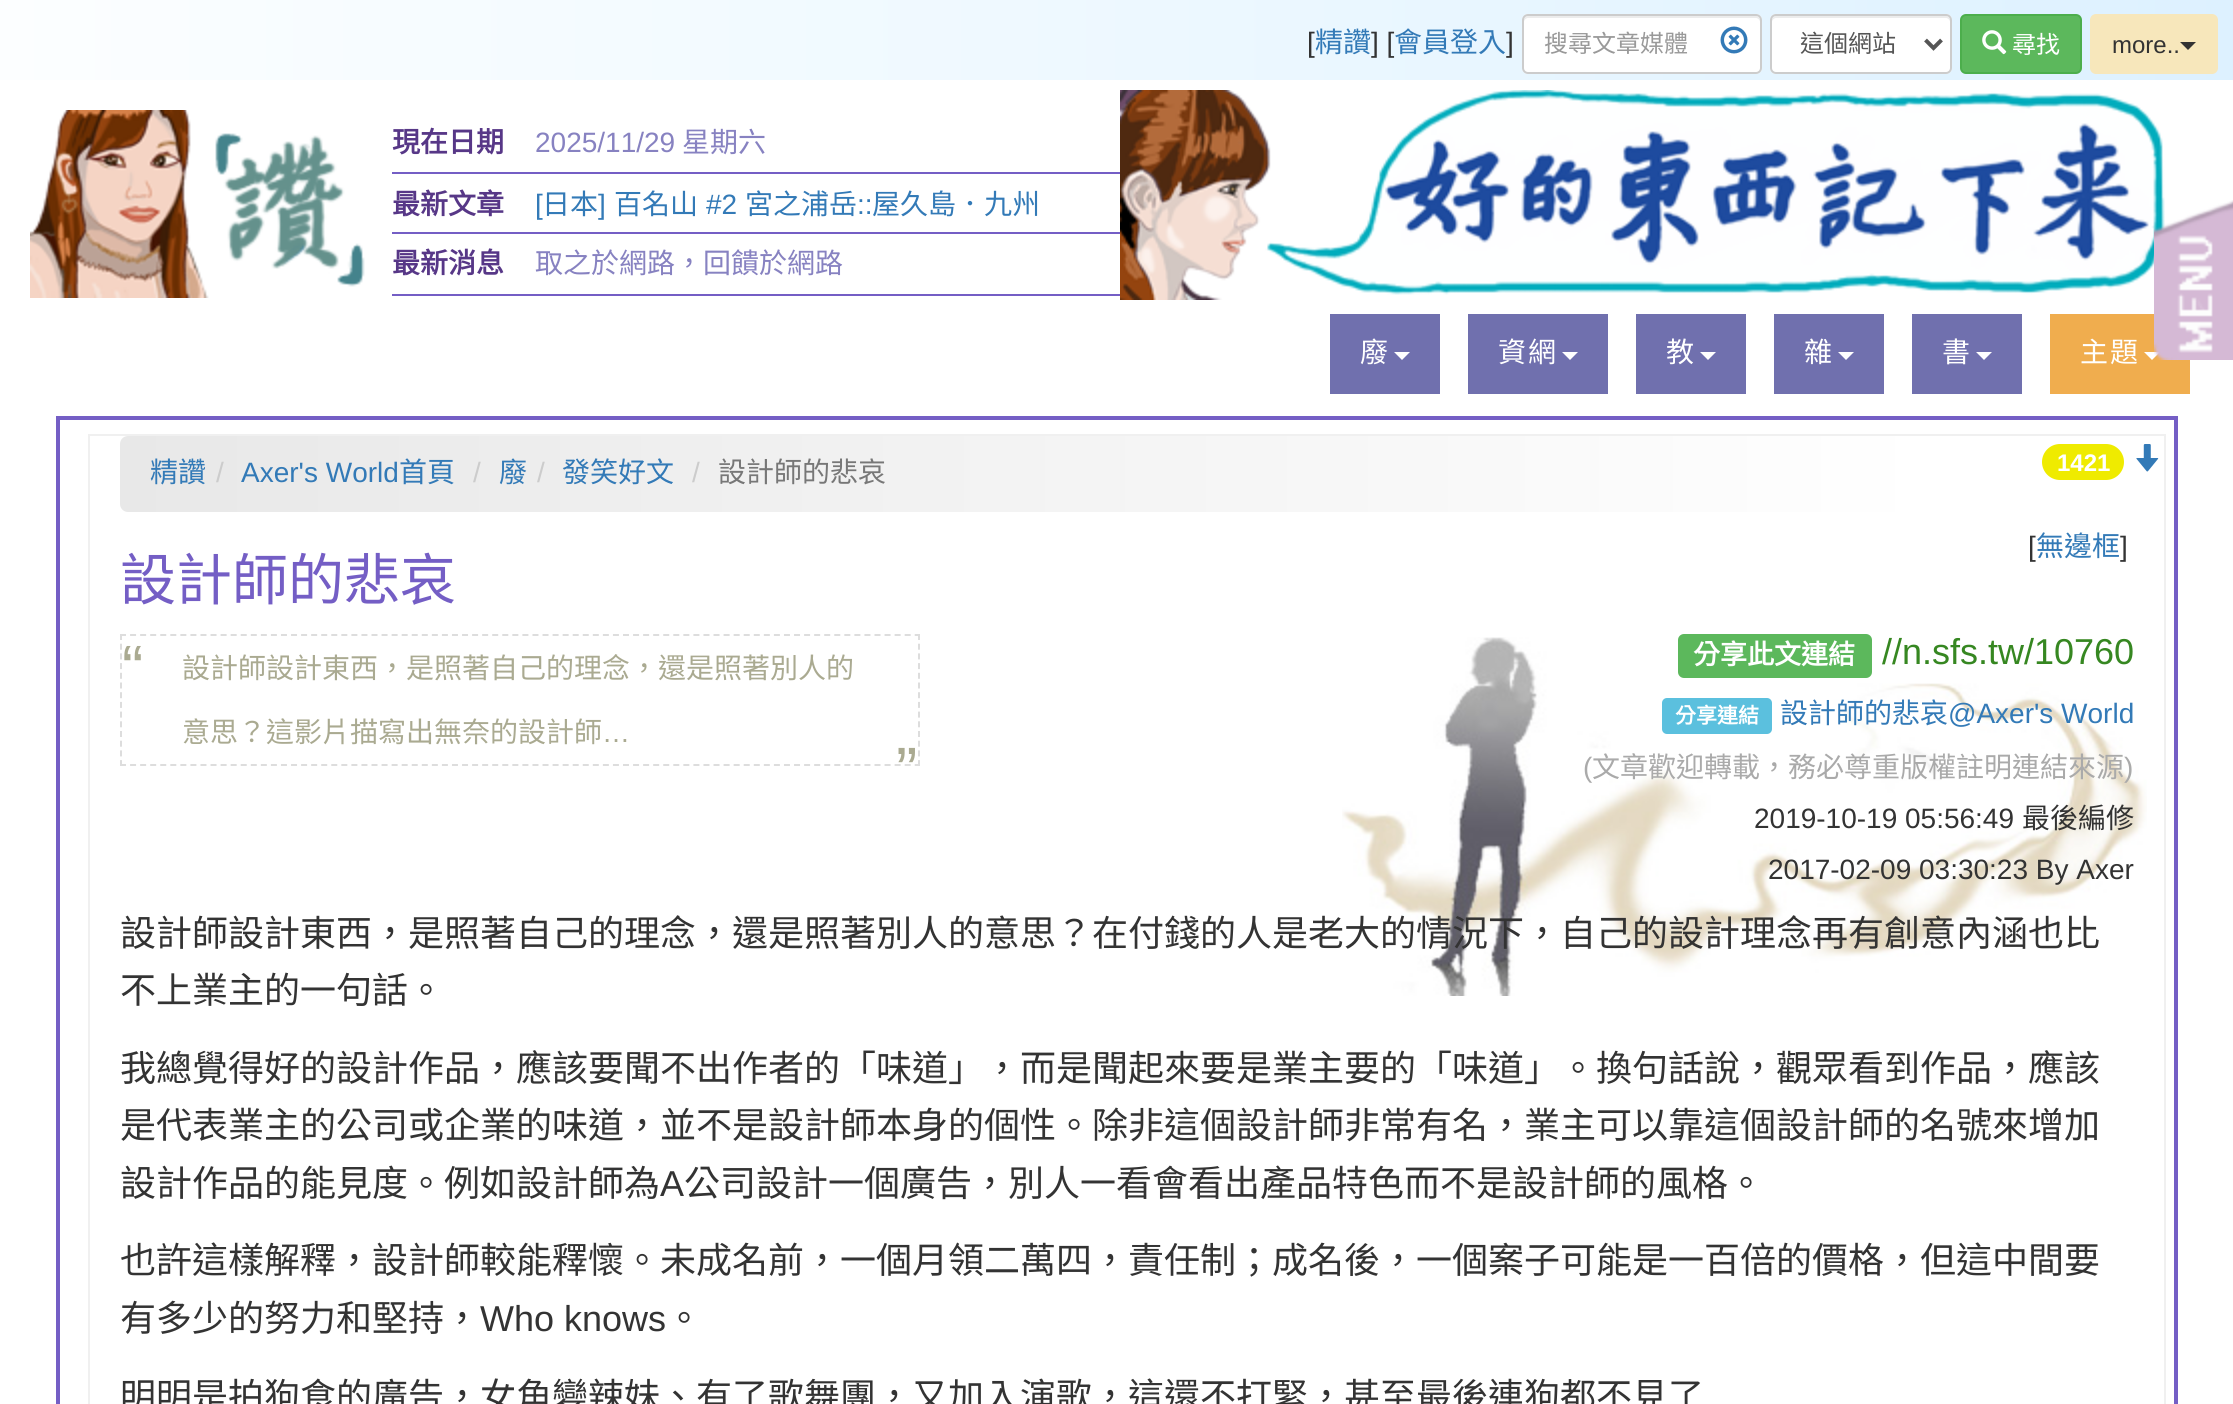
#include <cairo/cairo.h>
#include <math.h>
#include <stddef.h>

static cairo_t *cr;

static void use_color(int r, int g, int b) {
  cairo_set_source_rgb(cr, r / 255.0, g / 255.0, b / 255.0);
}

static void text(double x, double y, const char *s, const char *family, double size, int italic, int bold, int r, int g, int b) {
  cairo_select_font_face(cr, family, italic ? CAIRO_FONT_SLANT_ITALIC : CAIRO_FONT_SLANT_NORMAL,
    bold ? CAIRO_FONT_WEIGHT_BOLD : CAIRO_FONT_WEIGHT_NORMAL);
  cairo_set_font_size(cr, size);
  use_color(r, g, b);
  cairo_move_to(cr, x, y);
  cairo_show_text(cr, s);
}

static void spaced_text(double x, double y, const char *s, double letter, double word) {
  cairo_move_to(cr, x, y);
  while (*s) {
    char ch[5] = {0};
    int n = 0;
    do ch[n++] = *s++; while ((*s & 0xC0) == 0x80);
    cairo_show_text(cr, ch);
    cairo_rel_move_to(cr, letter + word * (*ch == ' '), 0);
  }
}

static void box(double x, double y, double w, double h, int r, int g, int b) {
  use_color(r, g, b);
  cairo_rectangle(cr, x, y, w, h);
  cairo_fill(cr);
}

static void round_rect(double x, double y, double w, double h, double r) {
  cairo_new_sub_path(cr);
  cairo_arc(cr, x + w - r, y + h - r, r, 0, M_PI / 2);
  cairo_arc(cr, x + r, y + h - r, r, M_PI / 2, M_PI);
  cairo_arc(cr, x + r, y + r, r, M_PI, 1.5 * M_PI);
  cairo_arc(cr, x + w - r, y + r, r, 1.5 * M_PI, 2 * M_PI);
  cairo_close_path(cr);
}

static void picture(const char *path, double x, double y, double w, double h) {
  cairo_surface_t *image = cairo_image_surface_create_from_png(path);
  cairo_save(cr);
  cairo_set_source_surface(cr, image, x, y);
  cairo_rectangle(cr, x, y, w, h);
  cairo_fill(cr);
  cairo_restore(cr);
  cairo_surface_destroy(image);
}

static void draw(void) {
  cairo_pattern_t *gradient;
  use_color(255, 255, 255);
  cairo_paint(cr);
  gradient = cairo_pattern_create_linear(0, 40, 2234, 40);
  cairo_pattern_add_color_stop_rgba(gradient, 0, 0.988, 0.996, 1, 1);
  cairo_pattern_add_color_stop_rgba(gradient, 0.52, 0.929, 0.973, 1, 1);
  cairo_pattern_add_color_stop_rgba(gradient, 1, 0.867, 0.945, 1, 1);
  cairo_set_source(cr, gradient);
  cairo_pattern_destroy(gradient);
  cairo_rectangle(cr, 0, 0, 2233, 80);
  cairo_fill(cr);
  use_color(255, 255, 255);
  round_rect(1522, 14, 240, 60, 6);
  cairo_fill(cr);
  use_color(236, 236, 236);
  cairo_new_path(cr);
  cairo_move_to(cr, 1528, 18);
  cairo_line_to(cr, 1756, 18);
  cairo_curve_to(cr, 1758, 18, 1760, 20, 1760, 22);
  cairo_line_to(cr, 1760, 20);
  cairo_curve_to(cr, 1760, 18, 1758, 16, 1756, 16);
  cairo_line_to(cr, 1528, 16);
  cairo_curve_to(cr, 1526, 16, 1524, 18, 1524, 20);
  cairo_line_to(cr, 1524, 22);
  cairo_curve_to(cr, 1524, 20, 1526, 18, 1528, 18);
  cairo_close_path(cr);
  cairo_fill(cr);
  round_rect(1523, 15, 238, 58, 5);
  use_color(204, 204, 204);
  cairo_stroke(cr);
  picture("img_01.png", 1720, 26, 28, 28);
  use_color(255, 255, 255);
  round_rect(1770, 14, 182, 60, 6);
  cairo_fill(cr);
  use_color(236, 236, 236);
  cairo_new_path(cr);
  cairo_move_to(cr, 1776, 18);
  cairo_line_to(cr, 1946, 18);
  cairo_curve_to(cr, 1948, 18, 1950, 20, 1950, 22);
  cairo_line_to(cr, 1950, 20);
  cairo_curve_to(cr, 1950, 18, 1948, 16, 1946, 16);
  cairo_line_to(cr, 1776, 16);
  cairo_curve_to(cr, 1774, 16, 1772, 18, 1772, 20);
  cairo_line_to(cr, 1772, 22);
  cairo_curve_to(cr, 1772, 20, 1774, 18, 1776, 18);
  cairo_close_path(cr);
  cairo_fill(cr);
  round_rect(1771, 15, 180, 58, 5);
  use_color(204, 204, 204);
  cairo_stroke(cr);
  cairo_new_path(cr);
  cairo_move_to(cr, 1925.5, 40);
  cairo_line_to(cr, 1933.5, 48);
  cairo_line_to(cr, 1941.5, 40);
  use_color(85, 85, 85);
  cairo_set_line_width(cr, 4);
  cairo_stroke(cr);
  use_color(92, 184, 92);
  round_rect(1961, 15, 120, 58, 5);
  cairo_fill_preserve(cr);
  use_color(76, 174, 76);
  cairo_set_line_width(cr, 2);
  cairo_stroke(cr);
  picture("img_02.png", 1982, 30, 25, 25);
  use_color(247, 231, 187);
  round_rect(2090, 14, 128, 60, 6);
  cairo_fill(cr);
  use_color(51, 51, 51);
  cairo_new_path(cr);
  cairo_move_to(cr, 2180, 42);
  cairo_line_to(cr, 2196, 42);
  cairo_line_to(cr, 2188, 50);
  cairo_close_path(cr);
  cairo_fill(cr);
  picture("img_03.png", 30, 110, 335, 188);
  box(392, 172, 728, 2, 116, 94, 197);
  box(392, 232, 728, 2, 116, 94, 197);
  box(392, 294, 728, 2, 116, 94, 197);
  picture("img_04.png", 1120, 90, 1045, 210);
  box(1330, 314, 110, 80, 112, 112, 174);
  use_color(255, 255, 255);
  cairo_new_path(cr);
  cairo_move_to(cr, 1394, 352);
  cairo_line_to(cr, 1410, 352);
  cairo_line_to(cr, 1402, 360);
  cairo_close_path(cr);
  cairo_fill(cr);
  box(1468, 314, 140, 80, 112, 112, 174);
  use_color(255, 255, 255);
  cairo_new_path(cr);
  cairo_move_to(cr, 1562, 352);
  cairo_line_to(cr, 1578, 352);
  cairo_line_to(cr, 1570, 360);
  cairo_close_path(cr);
  cairo_fill(cr);
  box(1636, 314, 110, 80, 112, 112, 174);
  use_color(255, 255, 255);
  cairo_new_path(cr);
  cairo_move_to(cr, 1700, 352);
  cairo_line_to(cr, 1716, 352);
  cairo_line_to(cr, 1708, 360);
  cairo_close_path(cr);
  cairo_fill(cr);
  box(1774, 314, 110, 80, 112, 112, 174);
  use_color(255, 255, 255);
  cairo_new_path(cr);
  cairo_move_to(cr, 1838, 352);
  cairo_line_to(cr, 1854, 352);
  cairo_line_to(cr, 1846, 360);
  cairo_close_path(cr);
  cairo_fill(cr);
  box(1912, 314, 110, 80, 112, 112, 174);
  use_color(255, 255, 255);
  cairo_new_path(cr);
  cairo_move_to(cr, 1976, 352);
  cairo_line_to(cr, 1992, 352);
  cairo_line_to(cr, 1984, 360);
  cairo_close_path(cr);
  cairo_fill(cr);
  box(2050, 314, 140, 80, 240, 173, 78);
  use_color(255, 255, 255);
  cairo_new_path(cr);
  cairo_move_to(cr, 2144, 352);
  cairo_line_to(cr, 2160, 352);
  cairo_line_to(cr, 2152, 360);
  cairo_close_path(cr);
  cairo_fill(cr);
  cairo_rectangle(cr, 58, 418, 2118, 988);
  use_color(116, 94, 197);
  cairo_set_line_width(cr, 4);
  cairo_stroke(cr);
  picture("img_05.png", 2154, 200, 79, 160);
  picture("img_06.png", 1342, 637, 805, 359);
  cairo_rectangle(cr, 89, 435, 2076, 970);
  use_color(240, 240, 240);
  cairo_set_line_width(cr, 2);
  cairo_stroke(cr);
  gradient = cairo_pattern_create_linear(120, 474, 1932, 474);
  cairo_pattern_add_color_stop_rgba(gradient, 0, 0.91, 0.91, 0.91, 1);
  cairo_pattern_add_color_stop_rgba(gradient, 0.75, 0.976, 0.976, 0.976, 1);
  cairo_pattern_add_color_stop_rgba(gradient, 1, 1, 1, 1, 1);
  cairo_set_source(cr, gradient);
  cairo_pattern_destroy(gradient);
  round_rect(120, 436, 1812, 76, 8);
  cairo_fill(cr);
  use_color(239, 235, 0);
  round_rect(2042, 444, 82, 36, 18);
  cairo_fill(cr);
  picture("img_07.png", 2136, 444, 23, 28);
  cairo_new_path(cr);
  cairo_move_to(cr, 120, 635);
  cairo_line_to(cr, 920, 635);
  use_color(221, 221, 221);
  cairo_set_dash(cr, (double[]){6, 4.06}, 2, 0);
  cairo_stroke(cr);
  cairo_new_path(cr);
  cairo_move_to(cr, 919, 634);
  cairo_line_to(cr, 919, 766);
  cairo_set_dash(cr, (double[]){6, 3.7}, 2, 0);
  cairo_stroke(cr);
  cairo_new_path(cr);
  cairo_move_to(cr, 120, 765);
  cairo_line_to(cr, 920, 765);
  cairo_set_dash(cr, (double[]){6, 4.06}, 2, 0);
  cairo_stroke(cr);
  cairo_new_path(cr);
  cairo_move_to(cr, 121, 634);
  cairo_line_to(cr, 121, 766);
  cairo_set_dash(cr, (double[]){6, 3.7}, 2, 0);
  cairo_stroke(cr);
  use_color(92, 184, 92);
  round_rect(1678, 634, 194, 44, 6);
  cairo_fill(cr);
  use_color(91, 192, 222);
  round_rect(1662, 698, 110, 36, 5);
  cairo_fill(cr);
  text(1307, 52, "[", "Liberation Sans", 28, 0, 0, 51, 51, 51);
  text(1315, 52, "精讚", "Noto Sans CJK TC", 28, 0, 0, 51, 122, 183);
  text(1371, 52, "] [", "Liberation Sans", 28, 0, 0, 51, 51, 51);
  text(1394, 52, "會員登入", "Noto Sans CJK TC", 28, 0, 0, 51, 122, 183);
  text(1506, 52, "]", "Liberation Sans", 28, 0, 0, 51, 51, 51);
  text(1544, 52, "搜尋文章媒體", "Noto Sans CJK TC", 24, 0, 0, 153, 153, 153);
  text(1800, 52, "這個網站", "Noto Sans CJK TC", 24, 0, 0, 85, 85, 85);
  text(2012, 53, "尋找", "Noto Sans CJK TC", 24, 0, 0, 255, 255, 255);
  text(2112, 53, "more..", "Liberation Sans", 24, 0, 0, 51, 51, 51);
  text(392, 152, "現在日期", "Noto Sans CJK TC", 28, 0, 1, 87, 55, 135);
  text(535, 152, "2025/11/29", "Liberation Sans", 28, 0, 0, 135, 130, 193);
  text(682, 152, "星期六", "Noto Sans CJK TC", 28, 0, 0, 135, 130, 193);
  text(392, 214, "最新文章", "Noto Sans CJK TC", 28, 0, 1, 87, 55, 135);
  text(535, 214, "[", "Liberation Sans", 28, 0, 0, 51, 122, 183);
  text(542, 214, "日本", "Noto Sans CJK TC", 28, 0, 0, 51, 122, 183);
  text(598, 214, "]", "Liberation Sans", 28, 0, 0, 51, 122, 183);
  text(614, 214, "百名山", "Noto Sans CJK TC", 28, 0, 0, 51, 122, 183);
  text(706, 214, "#2", "Liberation Sans", 28, 0, 0, 51, 122, 183);
  text(745, 214, "宮之浦岳", "Noto Sans CJK TC", 28, 0, 0, 51, 122, 183);
  text(857, 214, "::", "Liberation Sans", 28, 0, 0, 51, 122, 183);
  text(872, 214, "屋久島．九州", "Noto Sans CJK TC", 28, 0, 0, 51, 122, 183);
  text(392, 273, "最新消息", "Noto Sans CJK TC", 28, 0, 1, 87, 55, 135);
  text(535, 273, "取之於網路，回饋於網路", "Noto Sans CJK TC", 28, 0, 0, 135, 130, 193);
  use_color(255, 255, 255);
  spaced_text(1360, 362, "廢", 2, 0);
  spaced_text(1498, 362, "資網", 2, 0);
  spaced_text(1666, 362, "教", 2, 0);
  spaced_text(1804, 362, "雜", 2, 0);
  spaced_text(1942, 362, "書", 2, 0);
  spaced_text(2080, 362, "主題", 2, 0);
  text(150, 482, "精讚", "Noto Sans CJK TC", 28, 0, 0, 51, 122, 183);
  text(216, 482, "/", "Liberation Sans", 28, 0, 0, 204, 204, 204);
  text(241, 482, "Axer's World", "Liberation Sans", 28, 0, 0, 51, 122, 183);
  text(399, 482, "首頁", "Noto Sans CJK TC", 28, 0, 0, 51, 122, 183);
  text(473, 482, "/", "Liberation Sans", 28, 0, 0, 204, 204, 204);
  text(499, 482, "廢", "Noto Sans CJK TC", 28, 0, 0, 51, 122, 183);
  text(537, 482, "/", "Liberation Sans", 28, 0, 0, 204, 204, 204);
  text(562, 482, "發笑好文", "Noto Sans CJK TC", 28, 0, 0, 51, 122, 183);
  text(692, 482, "/", "Liberation Sans", 28, 0, 0, 204, 204, 204);
  text(718, 482, "設計師的悲哀", "Noto Sans CJK TC", 28, 0, 0, 119, 119, 119);
  text(2057, 471, "1421", "Liberation Sans", 24, 0, 1, 255, 255, 255);
  text(2028, 556, "[", "Liberation Sans", 28, 0, 0, 51, 51, 51);
  text(2036, 556, "無邊框", "Noto Sans CJK TC", 28, 0, 0, 51, 122, 183);
  text(2120, 556, "]", "Liberation Sans", 28, 0, 0, 51, 51, 51);
  text(120, 600, "設計師的悲哀", "Noto Sans CJK TC", 56, 0, 0, 116, 94, 197);
  text(122, 690, "“", "Liberation Sans", 64, 0, 0, 170, 170, 145);
  text(182, 678, "設計師設計東西，是照著自己的理念，還是照著別人的", "Noto Sans CJK TC", 28, 0, 0, 170, 170, 145);
  text(182, 742, "意思？這影片描寫出無奈的設計師", "Noto Sans CJK TC", 28, 0, 0, 170, 170, 145);
  text(602, 742, "…", "Liberation Sans", 28, 0, 0, 170, 170, 145);
  text(896, 754, "„", "Liberation Sans", 64, 0, 0, 170, 170, 145);
  text(1693, 664, "分享此文連結", "Noto Sans CJK TC", 27, 0, 1, 255, 255, 255);
  text(1882, 664, "//n.sfs.tw/10760", "Liberation Sans", 36, 0, 0, 54, 135, 33);
  text(1675, 723, "分享連結", "Noto Sans CJK TC", 21, 0, 1, 255, 255, 255);
  text(1780, 723, "設計師的悲哀", "Noto Sans CJK TC", 28, 0, 0, 51, 122, 183);
  text(1948, 723, "@Axer's World", "Liberation Sans", 28, 0, 0, 51, 122, 183);
  text(1583, 777, "(", "Liberation Sans", 28, 0, 0, 170, 170, 170);
  text(1592, 777, "文章歡迎轉載，務必尊重版權註明連結來源", "Noto Sans CJK TC", 28, 0, 0, 170, 170, 170);
  text(2124, 777, ")", "Liberation Sans", 28, 0, 0, 170, 170, 170);
  text(1754, 828, "2019-10-19 05:56:49", "Liberation Sans", 28, 0, 0, 51, 51, 51);
  text(2022, 828, "最後編修", "Noto Sans CJK TC", 28, 0, 0, 51, 51, 51);
  text(1768, 879, "2017-02-09 03:30:23 By Axer", "Liberation Sans", 28, 0, 0, 51, 51, 51);
  text(120, 946, "設計師設計東西，是照著自己的理念，還是照著別人的意思？在付錢的人是老大的情況下，自己的設計理念再有創意內涵也比", "Noto Sans CJK TC", 36, 0, 0, 51, 51, 51);
  text(120, 1003, "不上業主的一句話。", "Noto Sans CJK TC", 36, 0, 0, 51, 51, 51);
  text(120, 1081, "我總覺得好的設計作品，應該要聞不出作者的「味道」，而是聞起來要是業主要的「味道」。換句話說，觀眾看到作品，應該", "Noto Sans CJK TC", 36, 0, 0, 51, 51, 51);
  text(120, 1138, "是代表業主的公司或企業的味道，並不是設計師本身的個性。除非這個設計師非常有名，業主可以靠這個設計師的名號來增加", "Noto Sans CJK TC", 36, 0, 0, 51, 51, 51);
  text(120, 1196, "設計作品的能見度。例如設計師為", "Noto Sans CJK TC", 36, 0, 0, 51, 51, 51);
  text(660, 1196, "A", "Liberation Sans", 36, 0, 0, 51, 51, 51);
  text(684, 1196, "公司設計一個廣告，別人一看會看出產品特色而不是設計師的風格。", "Noto Sans CJK TC", 36, 0, 0, 51, 51, 51);
  text(120, 1273, "也許這樣解釋，設計師較能釋懷。未成名前，一個月領二萬四，責任制；成名後，一個案子可能是一百倍的價格，但這中間要", "Noto Sans CJK TC", 36, 0, 0, 51, 51, 51);
  text(120, 1331, "有多少的努力和堅持，", "Noto Sans CJK TC", 36, 0, 0, 51, 51, 51);
  text(480, 1331, "Who knows", "Liberation Sans", 36, 0, 0, 51, 51, 51);
  text(666, 1331, "。", "Noto Sans CJK TC", 36, 0, 0, 51, 51, 51);
  text(120, 1409, "明明是拍狗食的廣告，女角變辣妹、有了歌舞團，又加入演歌，這還不打緊，甚至最後連狗都不見了", "Noto Sans CJK TC", 36, 0, 0, 51, 51, 51);
}

int main(void) {
  cairo_surface_t *surface = cairo_image_surface_create(CAIRO_FORMAT_RGB24, 2233, 1404);
  cr = cairo_create(surface);
  cairo_font_options_t *options = cairo_font_options_create();
  cairo_font_options_set_hint_metrics(options, CAIRO_HINT_METRICS_OFF);
  cairo_font_options_set_hint_style(options, CAIRO_HINT_STYLE_NONE);
  cairo_set_font_options(cr, options);
  cairo_set_miter_limit(cr, 4);
  draw();
  cairo_surface_write_to_png(surface, "out.png");
  cairo_font_options_destroy(options);
  cairo_destroy(cr);
  cairo_surface_destroy(surface);
  return 0;
}
